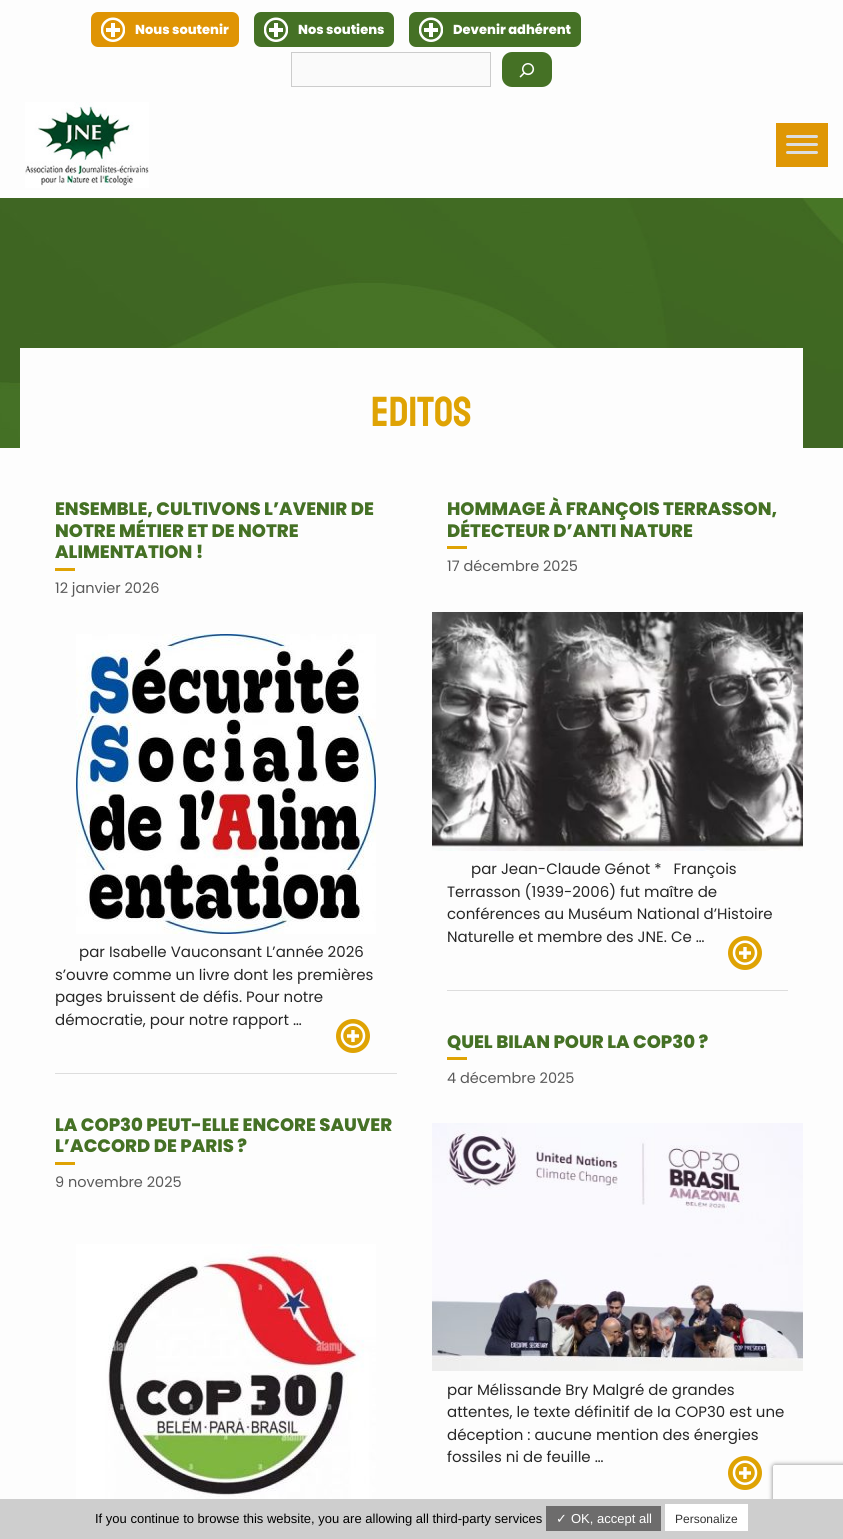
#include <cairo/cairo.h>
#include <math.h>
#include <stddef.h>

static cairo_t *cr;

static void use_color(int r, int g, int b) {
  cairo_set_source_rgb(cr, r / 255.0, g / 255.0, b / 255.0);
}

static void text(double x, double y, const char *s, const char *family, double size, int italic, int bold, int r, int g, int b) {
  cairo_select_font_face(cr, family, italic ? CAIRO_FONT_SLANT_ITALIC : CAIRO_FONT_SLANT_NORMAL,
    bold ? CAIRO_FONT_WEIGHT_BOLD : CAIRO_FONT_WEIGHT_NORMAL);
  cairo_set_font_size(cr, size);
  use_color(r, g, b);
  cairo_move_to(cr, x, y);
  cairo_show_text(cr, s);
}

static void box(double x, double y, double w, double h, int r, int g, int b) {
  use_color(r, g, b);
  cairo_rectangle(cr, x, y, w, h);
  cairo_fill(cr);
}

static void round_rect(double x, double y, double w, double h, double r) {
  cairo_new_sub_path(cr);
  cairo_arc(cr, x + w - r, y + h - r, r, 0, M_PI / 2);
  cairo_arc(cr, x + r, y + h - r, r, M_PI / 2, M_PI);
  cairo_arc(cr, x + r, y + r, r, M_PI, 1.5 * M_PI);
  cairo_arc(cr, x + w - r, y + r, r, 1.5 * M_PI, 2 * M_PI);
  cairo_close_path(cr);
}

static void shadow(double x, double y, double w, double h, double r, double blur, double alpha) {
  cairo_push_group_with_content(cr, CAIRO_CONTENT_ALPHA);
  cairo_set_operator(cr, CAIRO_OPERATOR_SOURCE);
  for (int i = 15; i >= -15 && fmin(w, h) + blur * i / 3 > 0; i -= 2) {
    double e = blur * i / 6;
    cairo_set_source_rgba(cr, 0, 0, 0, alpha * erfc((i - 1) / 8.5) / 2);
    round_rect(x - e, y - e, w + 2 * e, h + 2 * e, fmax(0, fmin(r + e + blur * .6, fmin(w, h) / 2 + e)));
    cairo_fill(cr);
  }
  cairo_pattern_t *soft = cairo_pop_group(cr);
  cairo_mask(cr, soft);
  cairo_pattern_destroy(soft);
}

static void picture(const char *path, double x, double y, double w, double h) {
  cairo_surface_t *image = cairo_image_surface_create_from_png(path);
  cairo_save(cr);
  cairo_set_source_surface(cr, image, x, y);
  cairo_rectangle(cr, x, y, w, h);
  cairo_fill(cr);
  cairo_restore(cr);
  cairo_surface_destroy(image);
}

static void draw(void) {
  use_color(253, 253, 253);
  cairo_paint(cr);
  use_color(223, 148, 4);
  round_rect(91, 12, 148, 35, 7);
  cairo_fill(cr);
  picture("img_01.png", 101, 17, 24, 25);
  use_color(69, 113, 37);
  round_rect(254, 12, 140, 35, 7);
  cairo_fill(cr);
  picture("img_02.png", 264, 17, 24, 25);
  round_rect(409, 12, 172, 35, 7);
  cairo_fill(cr);
  picture("img_02.png", 419, 17, 24, 25);
  use_color(250, 250, 250);
  cairo_rectangle(cr, 291.5, 52.5, 199, 34);
  cairo_fill_preserve(cr);
  use_color(204, 204, 204);
  cairo_set_line_width(cr, 1);
  cairo_stroke(cr);
  use_color(69, 113, 37);
  round_rect(502, 52, 50, 35, 10);
  cairo_fill(cr);
  picture("img_03.png", 519, 63, 16, 15);
  picture("img_04.png", 25, 102, 124, 86);
  box(776, 123, 52, 44, 223, 151, 5);
  use_color(221, 221, 221);
  round_rect(786, 135, 32, 3, 1.5);
  cairo_fill(cr);
  round_rect(786, 143, 32, 3, 1.5);
  cairo_fill(cr);
  round_rect(786, 151, 32, 3, 1.5);
  cairo_fill(cr);
  picture("img_05.png", 0, 198, 843, 250);
  box(20, 348, 783, 100, 253, 253, 253);
  box(55, 568, 20, 3, 223, 163, 4);
  picture("img_06.png", 76, 634, 300, 300);
  picture("img_07.png", 336, 1019, 34, 34);
  box(55, 1073, 342, 1, 221, 221, 221);
  box(447, 546, 20, 3, 223, 163, 4);
  picture("img_08.png", 432, 612, 371, 239);
  picture("img_07.png", 728, 936, 34, 34);
  box(447, 990, 341, 1, 221, 221, 221);
  box(55, 1162, 20, 3, 223, 163, 4);
  picture("img_09.png", 76, 1244, 300, 255);
  box(447, 1057, 20, 3, 223, 163, 4);
  picture("img_10.png", 432, 1123, 371, 248);
  picture("img_07.png", 728, 1456, 34, 34);
  cairo_save(cr);
  cairo_set_fill_rule(cr, CAIRO_FILL_RULE_EVEN_ODD);
  cairo_new_path(cr);
  cairo_move_to(cr, 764, 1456);
  cairo_line_to(cr, 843, 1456);
  cairo_line_to(cr, 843, 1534);
  cairo_line_to(cr, 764, 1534);
  cairo_close_path(cr);
  cairo_move_to(cr, 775, 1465);
  cairo_line_to(cr, 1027, 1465);
  cairo_curve_to(cr, 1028, 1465, 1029, 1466, 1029, 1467);
  cairo_line_to(cr, 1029, 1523);
  cairo_curve_to(cr, 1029, 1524, 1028, 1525, 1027, 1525);
  cairo_line_to(cr, 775, 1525);
  cairo_curve_to(cr, 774, 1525, 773, 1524, 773, 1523);
  cairo_line_to(cr, 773, 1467);
  cairo_curve_to(cr, 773, 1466, 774, 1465, 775, 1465);
  cairo_close_path(cr);
  cairo_clip(cr);
  use_color(128, 128, 128);
  shadow(773, 1465, 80, 60, 2, 2.5, 1);
  cairo_restore(cr);
  box(0, 1499, 843, 40, 206, 206, 206);
  box(546, 1506, 115, 25, 109, 108, 108);
  box(665, 1504, 83, 27, 255, 255, 255);
  text(135, 34, "Nous soutenir", "Poppins ExtraBold", 13, 0, 0, 255, 255, 255);
  text(298, 34, "Nos soutiens", "Poppins ExtraBold", 13, 0, 0, 255, 255, 255);
  text(453, 34, "Devenir adhérent", "Poppins ExtraBold", 13, 0, 0, 255, 255, 255);
  text(371, 426, "Editos", "Staatliches", 42, 0, 0, 223, 163, 4);
  text(55, 515, "ENSEMBLE, CULTIVONS L’AVENIR DE", "Poppins ExtraBold", 18, 0, 0, 69, 113, 37);
  text(55, 537, "NOTRE MÉTIER ET DE NOTRE", "Poppins ExtraBold", 18, 0, 0, 69, 113, 37);
  text(55, 558, "ALIMENTATION !", "Poppins ExtraBold", 18, 0, 0, 69, 113, 37);
  text(55, 593, "12 janvier 2026", "Poppins", 14.5, 0, 0, 89, 89, 89);
  text(79, 957, "par Isabelle Vauconsant L’année 2026", "Poppins", 15, 0, 0, 38, 38, 38);
  text(55, 980, "s’ouvre comme un livre dont les premières", "Poppins", 15, 0, 0, 38, 38, 38);
  text(55, 1002, "pages bruissent de défis. Pour notre", "Poppins", 15, 0, 0, 38, 38, 38);
  text(55, 1025, "démocratie, pour notre rapport …", "Poppins", 15, 0, 0, 38, 38, 38);
  text(447, 515, "HOMMAGE À FRANÇOIS TERRASSON,", "Poppins ExtraBold", 18, 0, 0, 69, 113, 37);
  text(447, 537, "DÉTECTEUR D’ANTI NATURE", "Poppins ExtraBold", 18, 0, 0, 69, 113, 37);
  text(447, 571, "17 décembre 2025", "Poppins", 14.5, 0, 0, 89, 89, 89);
  text(471, 874, "par Jean-Claude Génot *   François", "Poppins", 15, 0, 0, 38, 38, 38);
  text(447, 897, "Terrasson (1939-2006) fut maître de", "Poppins", 15, 0, 0, 38, 38, 38);
  text(447, 919, "conférences au Muséum National d’Histoire", "Poppins", 15, 0, 0, 38, 38, 38);
  text(447, 942, "Naturelle et membre des JNE. Ce …", "Poppins", 15, 0, 0, 38, 38, 38);
  text(55, 1131, "LA COP30 PEUT-ELLE ENCORE SAUVER", "Poppins ExtraBold", 18, 0, 0, 69, 113, 37);
  text(55, 1152, "L’ACCORD DE PARIS ?", "Poppins ExtraBold", 18, 0, 0, 69, 113, 37);
  text(55, 1187, "9 novembre 2025", "Poppins", 14.5, 0, 0, 89, 89, 89);
  text(447, 1048, "QUEL BILAN POUR LA COP30 ?", "Poppins ExtraBold", 18, 0, 0, 69, 113, 37);
  text(447, 1083, "4 décembre 2025", "Poppins", 14.5, 0, 0, 89, 89, 89);
  text(447, 1395, "par Mélissande Bry Malgré de grandes", "Poppins", 15, 0, 0, 38, 38, 38);
  text(447, 1417, "attentes, le texte définitif de la COP30 est une", "Poppins", 15, 0, 0, 38, 38, 38);
  text(447, 1440, "déception : aucune mention des énergies", "Poppins", 15, 0, 0, 38, 38, 38);
  text(447, 1462, "fossiles ni de feuille …", "Poppins", 15, 0, 0, 38, 38, 38);
  text(95, 1523, "If you continue to browse this website, you are allowing all third-party services", "Liberation Sans", 13, 0, 0, 0, 0, 0);
  text(556, 1523, "✓", "DejaVu Sans", 13, 0, 0, 255, 255, 255);
  text(571, 1523, "OK, accept all", "Liberation Sans", 13, 0, 0, 255, 255, 255);
  text(675, 1523, "Personalize", "Liberation Sans", 12, 0, 0, 51, 51, 51);
}

int main(void) {
  cairo_surface_t *surface = cairo_image_surface_create(CAIRO_FORMAT_RGB24, 843, 1539);
  cr = cairo_create(surface);
  cairo_font_options_t *options = cairo_font_options_create();
  cairo_font_options_set_hint_metrics(options, CAIRO_HINT_METRICS_OFF);
  cairo_font_options_set_hint_style(options, CAIRO_HINT_STYLE_NONE);
  cairo_set_font_options(cr, options);
  cairo_set_miter_limit(cr, 4);
  draw();
  cairo_surface_write_to_png(surface, "out.png");
  cairo_font_options_destroy(options);
  cairo_destroy(cr);
  cairo_surface_destroy(surface);
  return 0;
}
